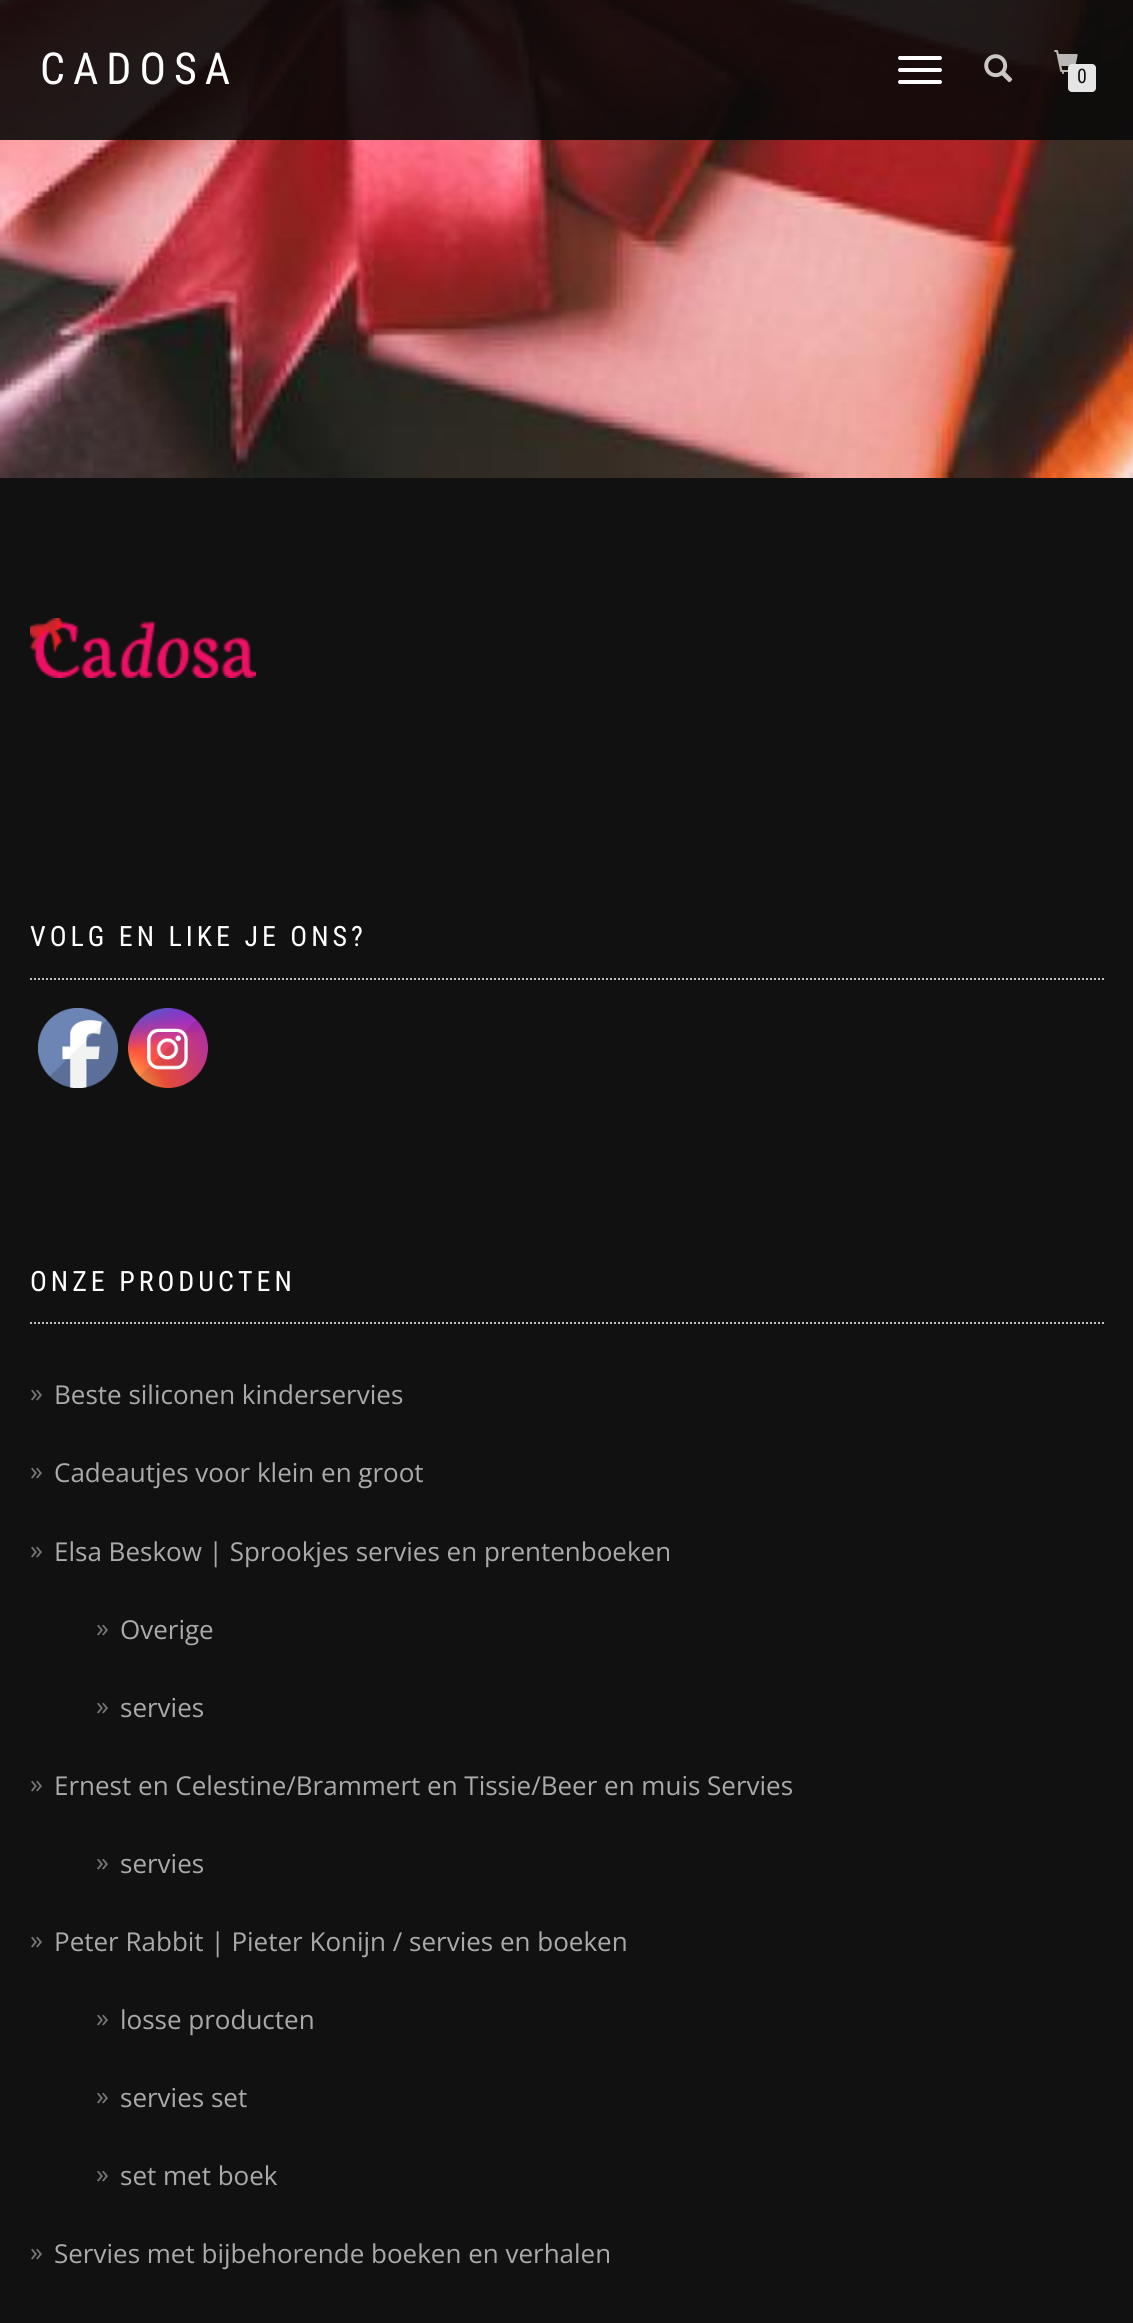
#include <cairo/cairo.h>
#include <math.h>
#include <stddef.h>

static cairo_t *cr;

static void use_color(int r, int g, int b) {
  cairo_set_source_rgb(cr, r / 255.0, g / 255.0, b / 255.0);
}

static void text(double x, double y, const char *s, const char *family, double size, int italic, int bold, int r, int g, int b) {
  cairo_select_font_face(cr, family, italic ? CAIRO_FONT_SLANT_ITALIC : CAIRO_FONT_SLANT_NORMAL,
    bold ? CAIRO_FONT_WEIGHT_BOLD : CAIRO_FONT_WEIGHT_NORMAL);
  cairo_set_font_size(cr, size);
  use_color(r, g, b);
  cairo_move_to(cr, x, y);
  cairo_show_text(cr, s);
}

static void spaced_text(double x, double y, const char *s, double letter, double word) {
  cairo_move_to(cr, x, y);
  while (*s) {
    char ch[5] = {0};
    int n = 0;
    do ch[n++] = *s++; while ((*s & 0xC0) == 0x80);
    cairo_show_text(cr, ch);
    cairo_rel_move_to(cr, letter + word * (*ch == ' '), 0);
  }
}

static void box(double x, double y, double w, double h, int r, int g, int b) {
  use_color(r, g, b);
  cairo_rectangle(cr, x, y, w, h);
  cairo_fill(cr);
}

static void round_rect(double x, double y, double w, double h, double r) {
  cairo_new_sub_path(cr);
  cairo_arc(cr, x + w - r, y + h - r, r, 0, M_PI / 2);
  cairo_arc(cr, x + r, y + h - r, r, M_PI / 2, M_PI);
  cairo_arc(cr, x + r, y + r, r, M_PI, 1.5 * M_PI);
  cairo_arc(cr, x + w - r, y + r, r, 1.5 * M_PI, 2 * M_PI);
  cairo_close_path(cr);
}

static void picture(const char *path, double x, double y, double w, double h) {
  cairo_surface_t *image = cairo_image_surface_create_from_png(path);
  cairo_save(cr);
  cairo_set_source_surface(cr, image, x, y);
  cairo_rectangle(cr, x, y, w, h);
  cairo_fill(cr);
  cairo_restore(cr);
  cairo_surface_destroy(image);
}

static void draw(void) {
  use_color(255, 255, 255);
  cairo_paint(cr);
  picture("img_01.png", 0, 0, 1133, 478);
  cairo_set_source_rgba(cr, 0.039, 0.039, 0.039, 0.9);
  cairo_rectangle(cr, 0, 0, 1133, 140);
  cairo_fill(cr);
  use_color(255, 255, 255);
  round_rect(898, 56, 44, 4, 2);
  cairo_fill(cr);
  round_rect(898, 68, 44, 4, 2);
  cairo_fill(cr);
  round_rect(898, 80, 44, 4, 2);
  cairo_fill(cr);
  picture("img_02.png", 984, 54, 29, 29);
  picture("img_03.png", 1054, 50, 24, 24);
  use_color(229, 229, 229);
  round_rect(1068, 64, 28, 28, 4);
  cairo_fill(cr);
  box(0, 478, 1133, 1845, 17, 17, 17);
  picture("img_04.png", 30, 618, 226, 60);
  cairo_new_path(cr);
  cairo_move_to(cr, 30, 979);
  cairo_line_to(cr, 1104, 979);
  use_color(194, 194, 194);
  cairo_set_dash(cr, (double[]){2, 2}, 2, 0);
  cairo_stroke(cr);
  picture("img_05.png", 38, 1008, 80, 80);
  picture("img_06.png", 128, 1008, 80, 80);
  cairo_new_path(cr);
  cairo_move_to(cr, 30, 1323);
  cairo_line_to(cr, 1104, 1323);
  cairo_stroke(cr);
  cairo_select_font_face(cr, "Roboto Condensed", CAIRO_FONT_SLANT_NORMAL, CAIRO_FONT_WEIGHT_NORMAL);
  cairo_set_font_size(cr, 44);
  use_color(255, 255, 255);
  spaced_text(40, 84, "CADOSA", 8, 0);
  text(1077, 83, "0", "Roboto Condensed", 20, 0, 0, 17, 17, 17);
  cairo_set_font_size(cr, 28);
  use_color(255, 255, 255);
  spaced_text(30, 946, "VOLG EN LIKE JE ONS?", 4, 0);
  spaced_text(30, 1291, "ONZE PRODUCTEN", 4, 0);
  text(30, 1402, "»", "Open Sans", 26, 0, 0, 119, 119, 119);
  text(54, 1404, "Beste siliconen kinderservies", "Open Sans", 26, 0, 0, 170, 170, 170);
  text(30, 1480, "»", "Open Sans", 26, 0, 0, 119, 119, 119);
  text(54, 1482, "Cadeautjes voor klein en groot", "Open Sans", 26, 0, 0, 170, 170, 170);
  text(30, 1559, "»", "Open Sans", 26, 0, 0, 119, 119, 119);
  text(54, 1561, "Elsa Beskow | Sprookjes servies en prentenboeken", "Open Sans", 26, 0, 0, 170, 170, 170);
  text(96, 1637, "»", "Open Sans", 26, 0, 0, 119, 119, 119);
  text(120, 1639, "Overige", "Open Sans", 26, 0, 0, 170, 170, 170);
  text(96, 1715, "»", "Open Sans", 26, 0, 0, 119, 119, 119);
  text(120, 1717, "servies", "Open Sans", 26, 0, 0, 170, 170, 170);
  text(30, 1793, "»", "Open Sans", 26, 0, 0, 119, 119, 119);
  text(54, 1795, "Ernest en Celestine/Brammert en Tissie/Beer en muis Servies", "Open Sans", 26, 0, 0, 170, 170, 170);
  text(96, 1871, "»", "Open Sans", 26, 0, 0, 119, 119, 119);
  text(120, 1873, "servies", "Open Sans", 26, 0, 0, 170, 170, 170);
  text(30, 1949, "»", "Open Sans", 26, 0, 0, 119, 119, 119);
  text(54, 1951, "Peter Rabbit | Pieter Konijn / servies en boeken", "Open Sans", 26, 0, 0, 170, 170, 170);
  text(96, 2027, "»", "Open Sans", 26, 0, 0, 119, 119, 119);
  text(120, 2029, "losse producten", "Open Sans", 26, 0, 0, 170, 170, 170);
  text(96, 2105, "»", "Open Sans", 26, 0, 0, 119, 119, 119);
  text(120, 2107, "servies set", "Open Sans", 26, 0, 0, 170, 170, 170);
  text(96, 2183, "»", "Open Sans", 26, 0, 0, 119, 119, 119);
  text(120, 2185, "set met boek", "Open Sans", 26, 0, 0, 170, 170, 170);
  text(30, 2261, "»", "Open Sans", 26, 0, 0, 119, 119, 119);
  text(54, 2263, "Servies met bijbehorende boeken en verhalen", "Open Sans", 26, 0, 0, 170, 170, 170);
}

int main(void) {
  cairo_surface_t *surface = cairo_image_surface_create(CAIRO_FORMAT_RGB24, 1133, 2323);
  cr = cairo_create(surface);
  cairo_font_options_t *options = cairo_font_options_create();
  cairo_font_options_set_hint_metrics(options, CAIRO_HINT_METRICS_OFF);
  cairo_font_options_set_hint_style(options, CAIRO_HINT_STYLE_NONE);
  cairo_set_font_options(cr, options);
  cairo_set_miter_limit(cr, 4);
  draw();
  cairo_surface_write_to_png(surface, "out.png");
  cairo_font_options_destroy(options);
  cairo_destroy(cr);
  cairo_surface_destroy(surface);
  return 0;
}
